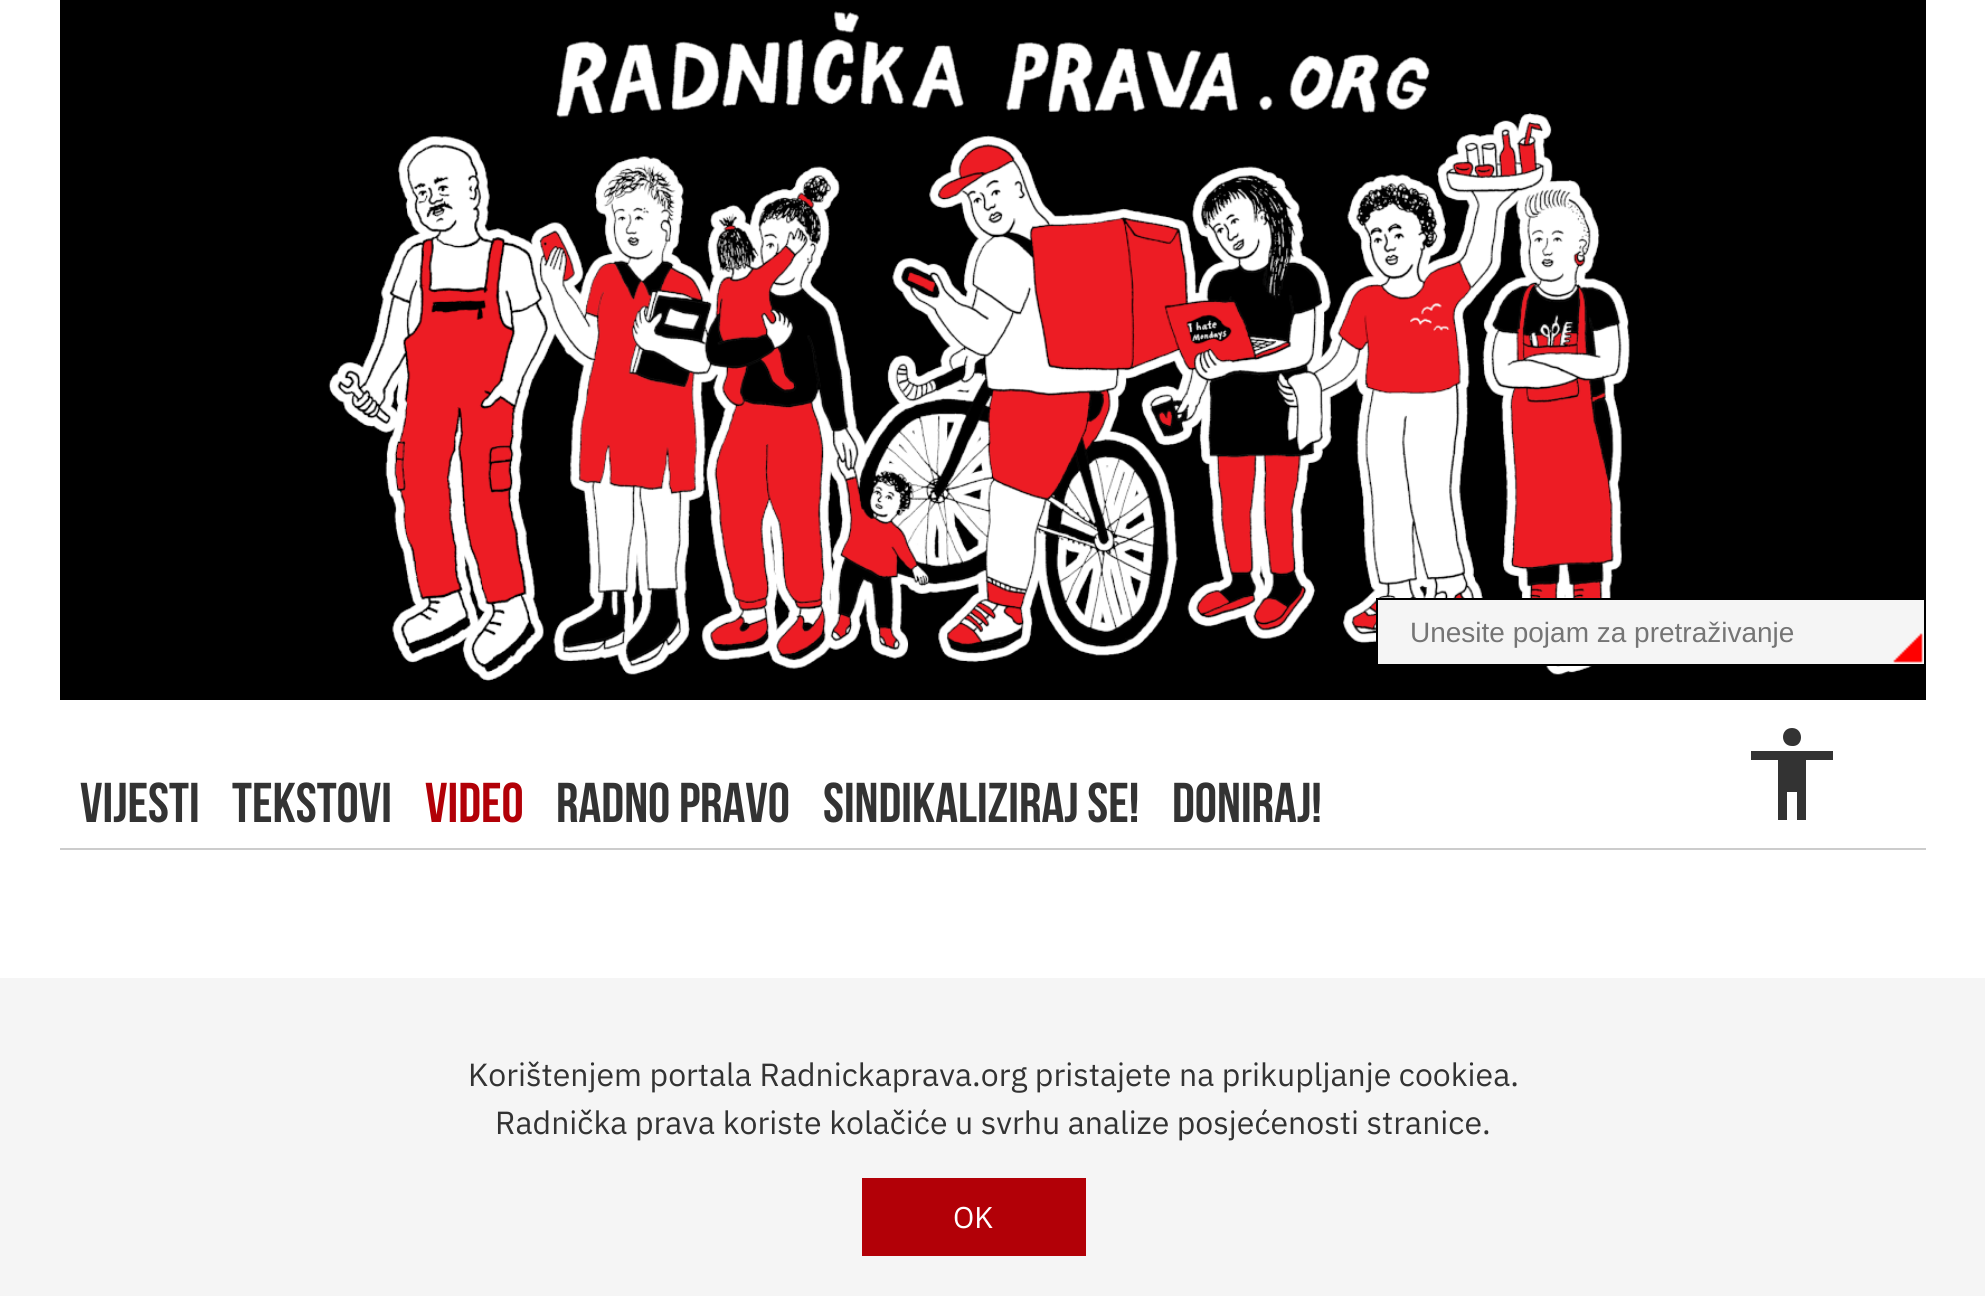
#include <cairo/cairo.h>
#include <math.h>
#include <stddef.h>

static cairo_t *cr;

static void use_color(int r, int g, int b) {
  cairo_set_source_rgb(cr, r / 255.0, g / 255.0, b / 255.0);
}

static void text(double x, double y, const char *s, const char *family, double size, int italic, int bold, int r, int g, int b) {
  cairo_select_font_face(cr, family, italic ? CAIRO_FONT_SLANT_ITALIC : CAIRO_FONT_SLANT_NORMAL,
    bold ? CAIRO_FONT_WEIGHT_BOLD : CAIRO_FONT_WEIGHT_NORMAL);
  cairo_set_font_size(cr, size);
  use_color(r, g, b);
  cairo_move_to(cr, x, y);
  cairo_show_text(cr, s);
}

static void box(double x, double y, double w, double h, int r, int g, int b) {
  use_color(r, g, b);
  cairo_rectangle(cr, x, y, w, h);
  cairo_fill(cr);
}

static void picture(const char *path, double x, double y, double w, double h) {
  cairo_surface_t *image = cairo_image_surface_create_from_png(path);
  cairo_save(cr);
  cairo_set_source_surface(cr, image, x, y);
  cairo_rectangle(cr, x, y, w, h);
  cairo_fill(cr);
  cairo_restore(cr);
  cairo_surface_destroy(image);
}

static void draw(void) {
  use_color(255, 255, 255);
  cairo_paint(cr);
  box(60, 0, 1866, 700, 0, 0, 0);
  picture("img_01.png", 328, 11, 1302, 670);
  box(1378, 600, 546, 64, 245, 245, 245);
  picture("img_02.png", 1893, 633, 30, 30);
  cairo_rectangle(cr, 1377, 599, 548, 66);
  use_color(0, 0, 0);
  cairo_stroke(cr);
  box(60, 848, 1866, 2, 204, 204, 204);
  use_color(51, 51, 51);
  cairo_new_path(cr);
  cairo_move_to(cr, 1833, 760);
  cairo_line_to(cr, 1806, 760);
  cairo_line_to(cr, 1806, 820);
  cairo_line_to(cr, 1797, 820);
  cairo_line_to(cr, 1797, 792);
  cairo_line_to(cr, 1787, 792);
  cairo_line_to(cr, 1787, 820);
  cairo_line_to(cr, 1778, 820);
  cairo_line_to(cr, 1778, 760);
  cairo_line_to(cr, 1751, 760);
  cairo_line_to(cr, 1751, 751);
  cairo_line_to(cr, 1833, 751);
  cairo_move_to(cr, 1792, 728);
  cairo_curve_to(cr, 1804, 728, 1804, 747, 1792, 746);
  cairo_curve_to(cr, 1780, 746, 1780, 728, 1792, 728);
  cairo_close_path(cr);
  cairo_fill(cr);
  box(0, 978, 1985, 318, 245, 245, 245);
  box(862, 1178, 224, 78, 178, 0, 7);
  text(1410, 642, "Unesite pojam za pretraživanje", "Liberation Sans", 28, 0, 0, 117, 117, 117);
  text(80, 822, "VIJESTI", "Bebas Neue", 56, 0, 0, 51, 51, 51);
  text(232, 822, "TEKSTOVI", "Bebas Neue", 56, 0, 0, 51, 51, 51);
  text(425, 822, "VIDEO", "Bebas Neue", 56, 0, 0, 178, 0, 7);
  text(556, 822, "RADNO PRAVO", "Bebas Neue", 56, 0, 0, 51, 51, 51);
  text(823, 822, "SINDIKALIZIRAJ SE!", "Bebas Neue", 56, 0, 0, 51, 51, 51);
  text(1172, 822, "DONIRAJ!", "Bebas Neue", 56, 0, 0, 51, 51, 51);
  text(468, 1086, "Korištenjem portala Radnickaprava.org pristajete na prikupljanje cookiea.", "IBM Plex Sans", 32, 0, 0, 51, 51, 51);
  text(495, 1134, "Radnička prava koriste kolačiće u svrhu analize posjećenosti stranice.", "IBM Plex Sans", 32, 0, 0, 51, 51, 51);
  text(953, 1228, "OK", "IBM Plex Sans", 30, 0, 0, 255, 255, 255);
}

int main(void) {
  cairo_surface_t *surface = cairo_image_surface_create(CAIRO_FORMAT_RGB24, 1985, 1296);
  cr = cairo_create(surface);
  cairo_font_options_t *options = cairo_font_options_create();
  cairo_font_options_set_hint_metrics(options, CAIRO_HINT_METRICS_OFF);
  cairo_font_options_set_hint_style(options, CAIRO_HINT_STYLE_NONE);
  cairo_set_font_options(cr, options);
  cairo_set_miter_limit(cr, 4);
  draw();
  cairo_surface_write_to_png(surface, "out.png");
  cairo_font_options_destroy(options);
  cairo_destroy(cr);
  cairo_surface_destroy(surface);
  return 0;
}
